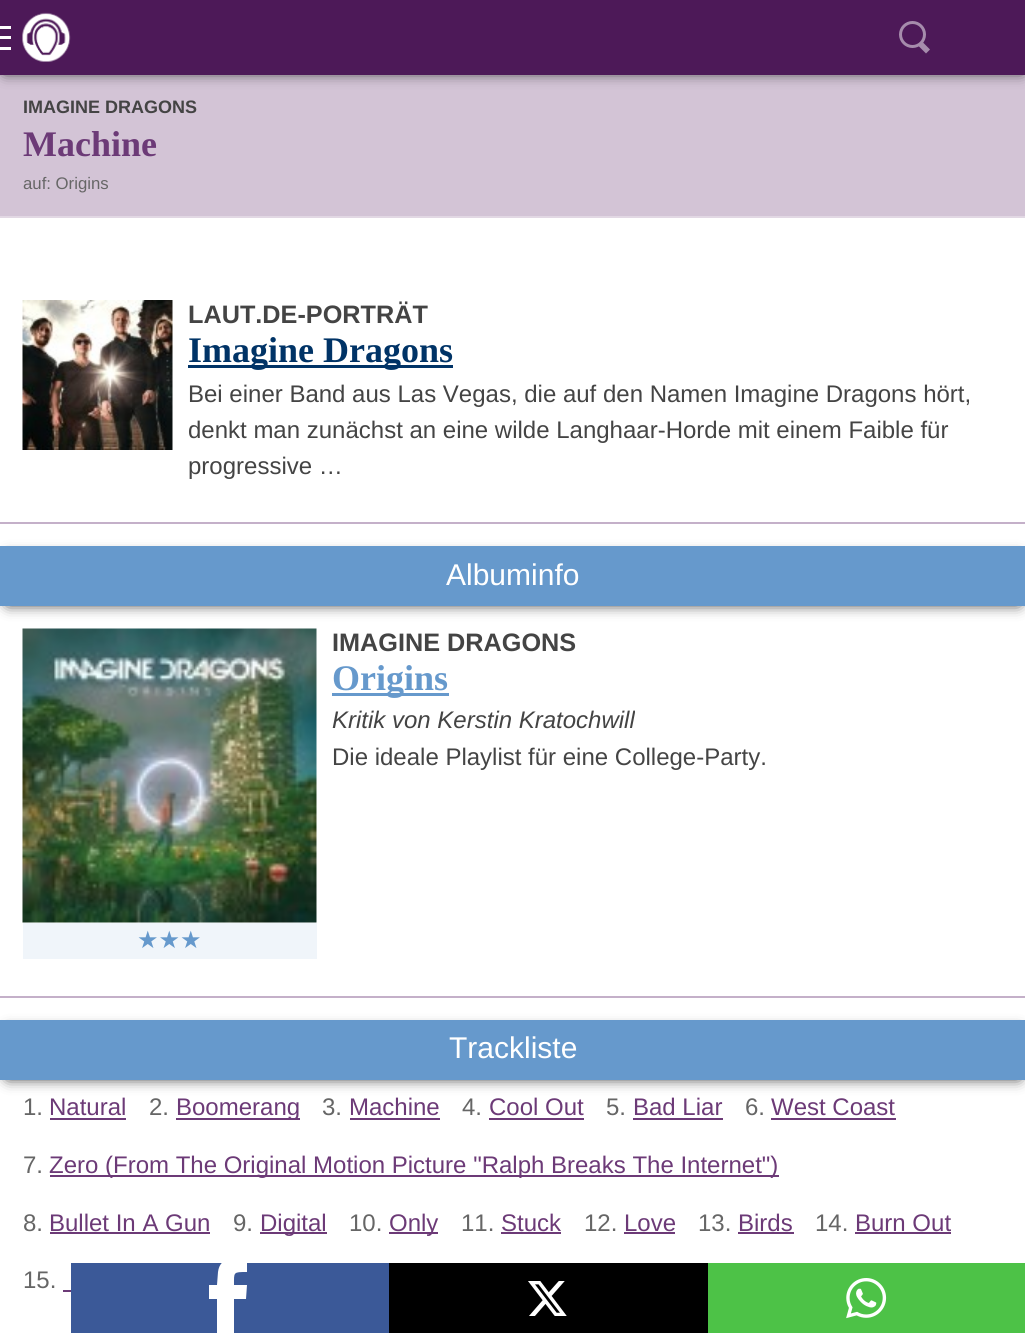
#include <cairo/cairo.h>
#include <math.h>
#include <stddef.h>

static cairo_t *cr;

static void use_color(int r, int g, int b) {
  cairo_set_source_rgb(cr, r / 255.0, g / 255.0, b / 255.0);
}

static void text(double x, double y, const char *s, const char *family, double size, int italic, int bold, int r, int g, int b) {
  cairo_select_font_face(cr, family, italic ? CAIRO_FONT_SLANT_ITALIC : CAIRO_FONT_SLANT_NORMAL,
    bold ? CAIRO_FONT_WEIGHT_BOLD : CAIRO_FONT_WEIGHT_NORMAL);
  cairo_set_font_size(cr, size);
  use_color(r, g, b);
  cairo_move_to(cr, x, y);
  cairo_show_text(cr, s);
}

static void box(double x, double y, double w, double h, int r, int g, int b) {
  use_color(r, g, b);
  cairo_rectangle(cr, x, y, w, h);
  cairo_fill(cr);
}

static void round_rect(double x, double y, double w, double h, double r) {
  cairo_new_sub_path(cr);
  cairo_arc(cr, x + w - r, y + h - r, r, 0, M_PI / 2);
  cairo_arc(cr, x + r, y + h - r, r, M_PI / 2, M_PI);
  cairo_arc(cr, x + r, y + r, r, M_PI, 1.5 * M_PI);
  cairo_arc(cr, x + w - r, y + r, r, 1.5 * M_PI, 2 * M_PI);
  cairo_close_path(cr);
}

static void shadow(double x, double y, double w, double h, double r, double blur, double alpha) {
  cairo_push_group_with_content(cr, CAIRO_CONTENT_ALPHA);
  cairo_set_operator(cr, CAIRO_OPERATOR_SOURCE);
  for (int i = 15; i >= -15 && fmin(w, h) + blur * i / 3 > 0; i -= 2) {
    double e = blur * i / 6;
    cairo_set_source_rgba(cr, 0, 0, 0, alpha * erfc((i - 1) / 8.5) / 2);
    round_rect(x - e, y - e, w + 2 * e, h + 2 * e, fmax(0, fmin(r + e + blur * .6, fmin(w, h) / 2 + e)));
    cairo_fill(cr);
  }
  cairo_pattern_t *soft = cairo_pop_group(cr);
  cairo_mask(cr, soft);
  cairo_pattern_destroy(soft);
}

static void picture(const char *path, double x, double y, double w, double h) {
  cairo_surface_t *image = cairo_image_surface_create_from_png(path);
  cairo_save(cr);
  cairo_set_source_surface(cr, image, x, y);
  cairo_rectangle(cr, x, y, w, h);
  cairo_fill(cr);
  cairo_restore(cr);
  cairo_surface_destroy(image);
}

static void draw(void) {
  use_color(226, 216, 228);
  cairo_paint(cr);
  box(0, 75, 1025, 141, 211, 196, 214);
  use_color(0, 0, 0);
  shadow(5, 5, 1017, 66, 0, 7.5, 1);
  box(0, 0, 1025, 75, 77, 25, 88);
  picture("img_01.png", 22, 12, 49, 50);
  box(0, 26, 11, 3, 255, 255, 255);
  box(0, 47, 11, 3, 255, 255, 255);
  box(0, 36, 11, 3, 255, 255, 255);
  use_color(166, 140, 172);
  cairo_new_path(cr);
  cairo_move_to(cr, 930, 49.5);
  cairo_line_to(cr, 926, 53.5);
  cairo_line_to(cr, 917.5, 45);
  cairo_line_to(cr, 921.5, 41);
  cairo_close_path(cr);
  cairo_fill(cr);
  cairo_arc(cr, 912.5, 34.5, 12, 0, 2 * M_PI);
  cairo_set_line_width(cr, 3);
  cairo_stroke(cr);
  box(0, 218, 1025, 1115, 255, 255, 255);
  box(0, 522, 1025, 2, 196, 176, 201);
  picture("img_02.png", 22, 300, 151, 150);
  box(188, 365, 265, 3, 0, 51, 102);
  box(0, 996, 1025, 2, 196, 176, 201);
  use_color(0, 0, 0);
  shadow(8, 558, 1011, 45, 0, 7.5, 1);
  box(0, 546, 1025, 60, 102, 153, 204);
  box(332, 693, 117, 3, 102, 153, 204);
  picture("img_03.png", 22, 628, 295, 295);
  box(23, 923, 294, 36, 240, 245, 250);
  use_color(0, 0, 0);
  shadow(8, 1032, 1011, 45, 0, 7.5, 1);
  box(0, 1020, 1025, 60, 102, 153, 204);
  box(50, 1118, 76, 2, 108, 58, 119);
  box(176, 1118, 124, 2, 108, 58, 119);
  box(350, 1118, 90, 2, 108, 58, 119);
  box(489, 1118, 95, 2, 108, 58, 119);
  box(633, 1118, 90, 2, 108, 58, 119);
  box(771, 1118, 125, 2, 108, 58, 119);
  box(50, 1175, 729, 2, 108, 58, 119);
  box(50, 1232, 160, 2, 108, 58, 119);
  box(260, 1232, 67, 2, 108, 58, 119);
  box(389, 1232, 49, 2, 108, 58, 119);
  box(501, 1232, 60, 2, 108, 58, 119);
  box(624, 1232, 51, 2, 108, 58, 119);
  box(738, 1232, 56, 2, 108, 58, 119);
  box(855, 1232, 96, 2, 108, 58, 119);
  box(63, 1290, 8, 2, 108, 58, 119);
  box(71, 1263, 318, 70, 59, 89, 152);
  cairo_save(cr);
  cairo_rectangle(cr, 179, 1263, 102, 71);
  cairo_clip(cr);
  use_color(255, 255, 255);
  cairo_set_fill_rule(cr, CAIRO_FILL_RULE_EVEN_ODD);
  cairo_new_path(cr);
  cairo_move_to(cr, 234, 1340);
  cairo_line_to(cr, 234, 1299);
  cairo_line_to(cr, 246, 1299);
  cairo_line_to(cr, 247, 1285);
  cairo_line_to(cr, 234, 1285);
  cairo_curve_to(cr, 234, 1272, 233, 1272, 247, 1272);
  cairo_line_to(cr, 247, 1258);
  cairo_curve_to(cr, 235, 1258, 220, 1256, 218, 1272);
  cairo_line_to(cr, 217, 1285);
  cairo_line_to(cr, 209, 1285);
  cairo_line_to(cr, 209, 1299);
  cairo_line_to(cr, 217, 1299);
  cairo_line_to(cr, 217, 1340);
  cairo_close_path(cr);
  cairo_fill(cr);
  cairo_restore(cr);
  box(389, 1263, 319, 70, 0, 0, 0);
  picture("img_04.png", 528, 1281, 39, 35);
  box(708, 1263, 317, 70, 77, 194, 71);
  picture("img_05.png", 846, 1278, 41, 41);
  text(23, 113, "IMAGINE DRAGONS", "Liberation Sans", 18, 0, 1, 68, 68, 68);
  text(23, 156, "Machine", "Liberation Serif", 36, 0, 1, 108, 58, 119);
  text(23, 189, "auf: Origins", "Liberation Sans", 16.75, 0, 0, 102, 102, 102);
  text(188, 323, "LAUT.DE-PORTRÄT", "Liberation Sans", 25.25, 0, 1, 68, 68, 68);
  text(188, 362, "Imagine Dragons", "Liberation Serif", 36, 0, 1, 0, 51, 102);
  text(188, 402, "Bei einer Band aus Las Vegas, die auf den Namen Imagine Dragons hört,", "Liberation Sans", 24, 0, 0, 68, 68, 68);
  text(188, 438, "denkt man zunächst an eine wilde Langhaar-Horde mit einem Faible für", "Liberation Sans", 24, 0, 0, 68, 68, 68);
  text(188, 474, "progressive …", "Liberation Sans", 24, 0, 0, 68, 68, 68);
  text(446, 585, "Albuminfo", "Liberation Sans", 30, 0, 0, 255, 255, 255);
  text(332, 651, "IMAGINE DRAGONS", "Liberation Sans", 25.25, 0, 1, 68, 68, 68);
  text(332, 690, "Origins", "Liberation Serif", 36, 0, 1, 102, 153, 204);
  text(332, 728, "Kritik von Kerstin Kratochwill", "Liberation Sans", 24, 1, 0, 68, 68, 68);
  text(332, 765, "Die ideale Playlist für eine College-Party.", "Liberation Sans", 24, 0, 0, 68, 68, 68);
  text(137, 948, "★★★", "DejaVu Sans", 24, 0, 0, 102, 153, 204);
  text(449, 1058, "Trackliste", "Liberation Sans", 30, 0, 0, 255, 255, 255);
  text(23, 1115, "1.", "Liberation Sans", 24, 0, 0, 102, 102, 102);
  text(49, 1115, "Natural", "Liberation Sans", 24, 0, 0, 108, 58, 119);
  text(149, 1115, "2.", "Liberation Sans", 24, 0, 0, 102, 102, 102);
  text(176, 1115, "Boomerang", "Liberation Sans", 24, 0, 0, 108, 58, 119);
  text(322, 1115, "3.", "Liberation Sans", 24, 0, 0, 102, 102, 102);
  text(349, 1115, "Machine", "Liberation Sans", 24, 0, 0, 108, 58, 119);
  text(462, 1115, "4.", "Liberation Sans", 24, 0, 0, 102, 102, 102);
  text(489, 1115, "Cool Out", "Liberation Sans", 24, 0, 0, 108, 58, 119);
  text(606, 1115, "5.", "Liberation Sans", 24, 0, 0, 102, 102, 102);
  text(633, 1115, "Bad Liar", "Liberation Sans", 24, 0, 0, 108, 58, 119);
  text(745, 1115, "6.", "Liberation Sans", 24, 0, 0, 102, 102, 102);
  text(771, 1115, "West Coast", "Liberation Sans", 24, 0, 0, 108, 58, 119);
  text(23, 1173, "7.", "Liberation Sans", 24, 0, 0, 102, 102, 102);
  text(49, 1173, "Zero (From The Original Motion Picture \"Ralph Breaks The Internet\")", "Liberation Sans", 24, 0, 0, 108, 58, 119);
  text(23, 1231, "8.", "Liberation Sans", 24, 0, 0, 102, 102, 102);
  text(49, 1231, "Bullet In A Gun", "Liberation Sans", 24, 0, 0, 108, 58, 119);
  text(233, 1231, "9.", "Liberation Sans", 24, 0, 0, 102, 102, 102);
  text(260, 1231, "Digital", "Liberation Sans", 24, 0, 0, 108, 58, 119);
  text(349, 1231, "10.", "Liberation Sans", 24, 0, 0, 102, 102, 102);
  text(389, 1231, "Only", "Liberation Sans", 24, 0, 0, 108, 58, 119);
  text(461, 1231, "11.", "Liberation Sans", 24, 0, 0, 102, 102, 102);
  text(501, 1231, "Stuck", "Liberation Sans", 24, 0, 0, 108, 58, 119);
  text(584, 1231, "12.", "Liberation Sans", 24, 0, 0, 102, 102, 102);
  text(624, 1231, "Love", "Liberation Sans", 24, 0, 0, 108, 58, 119);
  text(698, 1231, "13.", "Liberation Sans", 24, 0, 0, 102, 102, 102);
  text(738, 1231, "Birds", "Liberation Sans", 24, 0, 0, 108, 58, 119);
  text(815, 1231, "14.", "Liberation Sans", 24, 0, 0, 102, 102, 102);
  cairo_save(cr);
  cairo_rectangle(cr, 816, 1194, 135, 59);
  cairo_clip(cr);
  text(855, 1231, "Burn Out", "Liberation Sans", 24, 0, 0, 108, 58, 119);
  cairo_restore(cr);
  text(23, 1288, "15.", "Liberation Sans", 24, 0, 0, 102, 102, 102);
}

int main(void) {
  cairo_surface_t *surface = cairo_image_surface_create(CAIRO_FORMAT_RGB24, 1025, 1333);
  cr = cairo_create(surface);
  cairo_font_options_t *options = cairo_font_options_create();
  cairo_font_options_set_hint_metrics(options, CAIRO_HINT_METRICS_OFF);
  cairo_font_options_set_hint_style(options, CAIRO_HINT_STYLE_NONE);
  cairo_set_font_options(cr, options);
  cairo_set_miter_limit(cr, 4);
  draw();
  cairo_surface_write_to_png(surface, "out.png");
  cairo_font_options_destroy(options);
  cairo_destroy(cr);
  cairo_surface_destroy(surface);
  return 0;
}
